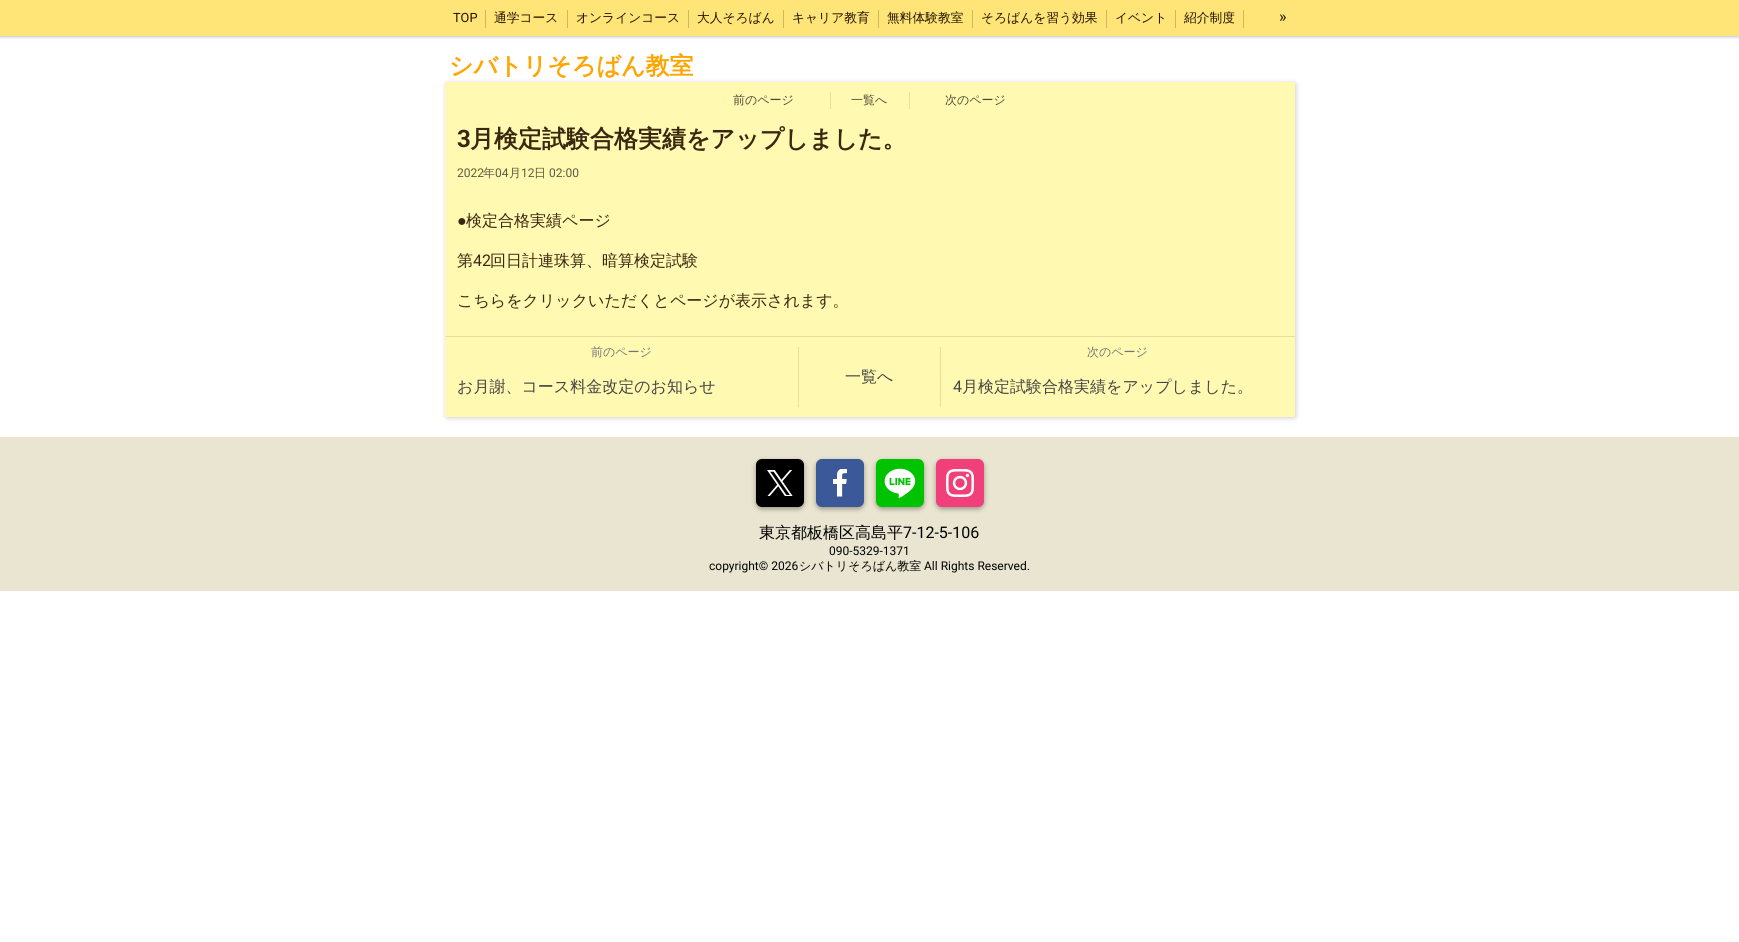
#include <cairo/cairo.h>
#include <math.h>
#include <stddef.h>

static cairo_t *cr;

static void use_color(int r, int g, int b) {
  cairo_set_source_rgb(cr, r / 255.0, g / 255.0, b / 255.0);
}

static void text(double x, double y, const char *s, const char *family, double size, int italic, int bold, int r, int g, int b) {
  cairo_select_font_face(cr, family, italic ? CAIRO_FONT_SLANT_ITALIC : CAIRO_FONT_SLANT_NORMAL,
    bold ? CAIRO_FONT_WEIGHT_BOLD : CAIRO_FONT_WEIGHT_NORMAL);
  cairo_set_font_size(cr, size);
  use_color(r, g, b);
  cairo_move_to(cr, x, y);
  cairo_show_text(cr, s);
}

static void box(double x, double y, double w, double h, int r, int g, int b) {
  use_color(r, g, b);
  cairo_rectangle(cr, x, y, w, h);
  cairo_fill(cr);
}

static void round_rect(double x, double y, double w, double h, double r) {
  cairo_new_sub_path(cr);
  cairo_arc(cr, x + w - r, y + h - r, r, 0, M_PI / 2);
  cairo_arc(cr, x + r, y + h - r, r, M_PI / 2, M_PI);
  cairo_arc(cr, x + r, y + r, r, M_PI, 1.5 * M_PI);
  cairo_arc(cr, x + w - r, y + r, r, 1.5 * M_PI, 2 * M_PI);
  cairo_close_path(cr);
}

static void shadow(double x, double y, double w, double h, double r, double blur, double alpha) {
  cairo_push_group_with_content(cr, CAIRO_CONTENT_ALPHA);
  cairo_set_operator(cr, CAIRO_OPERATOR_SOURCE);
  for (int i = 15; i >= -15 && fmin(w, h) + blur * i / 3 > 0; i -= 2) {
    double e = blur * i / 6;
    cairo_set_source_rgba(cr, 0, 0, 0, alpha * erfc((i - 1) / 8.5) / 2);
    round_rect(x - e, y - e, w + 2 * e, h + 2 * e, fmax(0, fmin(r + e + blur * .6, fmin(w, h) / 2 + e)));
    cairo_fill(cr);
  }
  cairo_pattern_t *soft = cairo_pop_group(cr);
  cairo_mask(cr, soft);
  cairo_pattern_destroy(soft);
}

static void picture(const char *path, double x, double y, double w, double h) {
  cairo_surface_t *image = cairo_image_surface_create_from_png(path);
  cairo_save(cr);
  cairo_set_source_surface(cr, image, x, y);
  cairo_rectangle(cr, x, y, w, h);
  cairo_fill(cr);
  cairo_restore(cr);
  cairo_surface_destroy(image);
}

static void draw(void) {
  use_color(255, 255, 255);
  cairo_paint(cr);
  use_color(1, 1, 1);
  shadow(0, 0, 1739, 36, 0, 2, 0.4);
  box(0, 0, 1739, 36, 255, 229, 120);
  box(485, 10, 1, 18, 206, 184, 93);
  box(567, 10, 1, 18, 206, 184, 93);
  box(688, 10, 1, 18, 206, 184, 93);
  box(783, 10, 1, 18, 206, 184, 93);
  box(878, 10, 1, 18, 206, 184, 93);
  box(972, 10, 1, 18, 206, 184, 93);
  box(1106, 10, 1, 18, 206, 184, 93);
  box(1175, 10, 1, 18, 206, 184, 93);
  box(1243, 10, 1, 18, 206, 184, 93);
  use_color(0, 0, 0);
  shadow(446, 83, 850, 335, 2, 2.5, 0.2);
  use_color(255, 249, 177);
  round_rect(445, 82, 850, 335, 2);
  cairo_fill(cr);
  box(909, 92, 1, 17, 230, 224, 159);
  box(830, 92, 1, 17, 230, 224, 159);
  box(445, 336, 850, 1, 230, 224, 159);
  box(798, 347, 1, 60, 230, 224, 159);
  box(940, 347, 1, 60, 230, 224, 159);
  box(0, 437, 1739, 154, 234, 229, 208);
  use_color(0, 0, 0);
  shadow(756, 461, 48, 48, 6, 2.5, 0.35);
  use_color(0, 0, 0);
  round_rect(756, 459, 48, 48, 6);
  cairo_fill(cr);
  picture("img_01.png", 767, 470, 26, 26);
  use_color(0, 0, 0);
  shadow(816, 461, 48, 48, 6, 2.5, 0.35);
  use_color(59, 89, 152);
  round_rect(816, 459, 48, 48, 6);
  cairo_fill(cr);
  picture("img_02.png", 833, 469, 14, 28);
  use_color(0, 0, 0);
  shadow(876, 461, 48, 48, 6, 2.5, 0.35);
  use_color(0, 195, 0);
  round_rect(876, 459, 48, 48, 6);
  cairo_fill(cr);
  use_color(255, 255, 255);
  round_rect(881, 464, 38, 38, 10);
  cairo_fill(cr);
  picture("img_03.png", 881, 464, 38, 38);
  use_color(0, 0, 0);
  shadow(936, 461, 48, 48, 6, 2.5, 0.35);
  use_color(241, 63, 121);
  round_rect(936, 459, 48, 48, 6);
  cairo_fill(cr);
  picture("img_04.png", 946, 469, 28, 28);
  text(453, 22, "TOP", "Roboto", 12.75, 0, 0, 34, 17, 0);
  text(494, 22, "通学コース", "WenQuanYi Zen Hei Medium", 12.75, 0, 0, 34, 17, 0);
  text(576, 22, "オンラインコース", "WenQuanYi Zen Hei Medium", 12.75, 0, 0, 34, 17, 0);
  text(697, 22, "大人そろばん", "WenQuanYi Zen Hei Medium", 12.75, 0, 0, 34, 17, 0);
  text(792, 22, "キャリア教育", "WenQuanYi Zen Hei Medium", 12.75, 0, 0, 34, 17, 0);
  text(887, 22, "無料体験教室", "WenQuanYi Zen Hei Medium", 12.75, 0, 0, 34, 17, 0);
  text(981, 22, "そろばんを習う効果", "WenQuanYi Zen Hei Medium", 12.75, 0, 0, 34, 17, 0);
  text(1115, 22, "イベント", "WenQuanYi Zen Hei Medium", 12.75, 0, 0, 34, 17, 0);
  text(1184, 22, "紹介制度", "WenQuanYi Zen Hei Medium", 12.75, 0, 0, 34, 17, 0);
  text(1279, 22, "»", "Roboto", 16, 0, 0, 34, 17, 0);
  text(449, 74, "シバトリそろばん教室", "WenQuanYi Zen Hei", 24, 0, 1, 255, 165, 0);
  text(733, 104, "前のページ", "WenQuanYi Zen Hei Medium", 12, 0, 0, 77, 75, 53);
  text(851, 104, "一覧へ", "WenQuanYi Zen Hei Medium", 12, 0, 0, 77, 75, 53);
  text(945, 104, "次のページ", "WenQuanYi Zen Hei Medium", 12, 0, 0, 77, 75, 53);
  text(457, 147, "3", "Roboto", 24, 0, 1, 57, 39, 15);
  text(470, 147, "月検定試験合格実績をアップしました。", "WenQuanYi Zen Hei", 24, 0, 1, 57, 39, 15);
  text(457, 177, "2022", "Roboto", 12, 0, 0, 92, 90, 64);
  text(483, 177, "年", "WenQuanYi Zen Hei Medium", 12, 0, 0, 92, 90, 64);
  text(495, 177, "04", "Roboto", 12, 0, 0, 92, 90, 64);
  text(509, 177, "月", "WenQuanYi Zen Hei Medium", 12, 0, 0, 92, 90, 64);
  text(521, 177, "12", "Roboto", 12, 0, 0, 92, 90, 64);
  text(534, 177, "日", "WenQuanYi Zen Hei Medium", 12, 0, 0, 92, 90, 64);
  text(549, 177, "02:00", "Roboto", 12, 0, 0, 92, 90, 64);
  text(457, 226, "●", "Liberation Sans", 16, 0, 0, 57, 39, 15);
  text(466, 226, "検定合格実績ページ", "WenQuanYi Zen Hei Medium", 16, 0, 0, 57, 39, 15);
  text(457, 266, "第", "WenQuanYi Zen Hei Medium", 16, 0, 0, 57, 39, 15);
  text(473, 266, "42", "Roboto", 16, 0, 0, 57, 39, 15);
  text(490, 266, "回日計連珠算、暗算検定試験", "WenQuanYi Zen Hei Medium", 16, 0, 0, 57, 39, 15);
  text(457, 306, "こちらをクリックいただくとページが表示されます。", "WenQuanYi Zen Hei Medium", 16, 0, 0, 57, 39, 15);
  text(591, 356, "前のページ", "WenQuanYi Zen Hei Medium", 12, 0, 0, 117, 117, 117);
  text(457, 392, "お月謝、コース料金改定のお知らせ", "WenQuanYi Zen Hei Medium", 16, 0, 0, 68, 68, 68);
  text(845, 382, "一覧へ", "WenQuanYi Zen Hei Medium", 16, 0, 0, 68, 68, 68);
  text(1087, 356, "次のページ", "WenQuanYi Zen Hei Medium", 12, 0, 0, 117, 117, 117);
  text(953, 392, "4", "Roboto", 16, 0, 0, 68, 68, 68);
  text(962, 392, "月検定試験合格実績をアップしました。", "WenQuanYi Zen Hei Medium", 16, 0, 0, 68, 68, 68);
  text(759, 538, "東京都板橋区高島平", "WenQuanYi Zen Hei Medium", 16, 0, 0, 0, 0, 0);
  text(903, 538, "7-12-5-106", "Roboto", 16, 0, 0, 0, 0, 0);
  text(829, 555, "090-5329-1371", "Roboto", 12, 0, 0, 0, 0, 0);
  text(709, 570, "copyright© 2026", "Roboto", 12, 0, 0, 0, 0, 0);
  text(799, 570, "シバトリそろばん教室", "WenQuanYi Zen Hei Medium", 12, 0, 0, 0, 0, 0);
  text(924, 570, "All Rights Reserved.", "Roboto", 12, 0, 0, 0, 0, 0);
}

int main(void) {
  cairo_surface_t *surface = cairo_image_surface_create(CAIRO_FORMAT_RGB24, 1739, 942);
  cr = cairo_create(surface);
  cairo_font_options_t *options = cairo_font_options_create();
  cairo_font_options_set_hint_metrics(options, CAIRO_HINT_METRICS_OFF);
  cairo_font_options_set_hint_style(options, CAIRO_HINT_STYLE_NONE);
  cairo_set_font_options(cr, options);
  cairo_set_miter_limit(cr, 4);
  draw();
  cairo_surface_write_to_png(surface, "out.png");
  cairo_font_options_destroy(options);
  cairo_destroy(cr);
  cairo_surface_destroy(surface);
  return 0;
}
